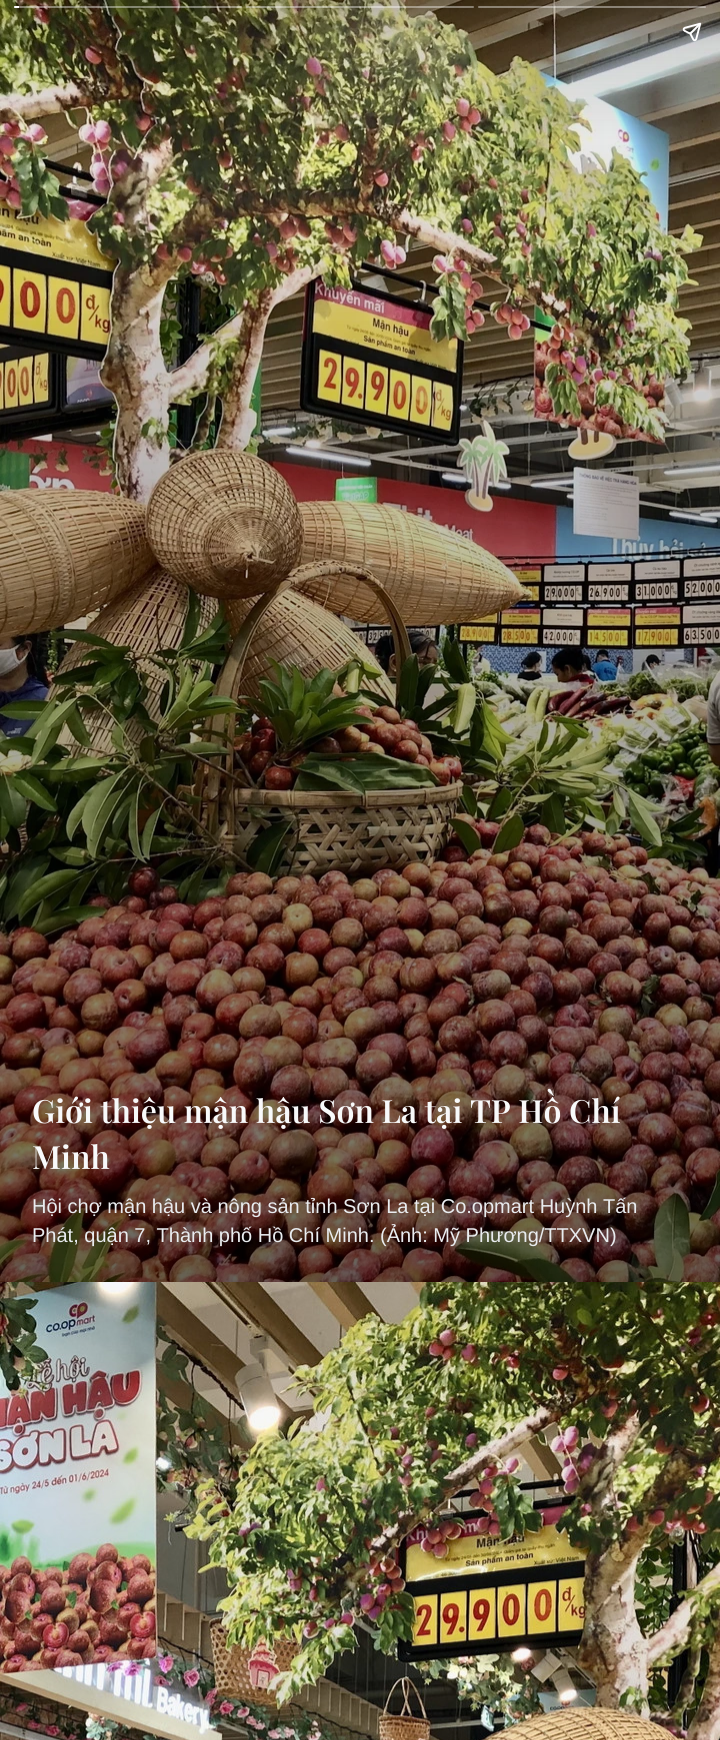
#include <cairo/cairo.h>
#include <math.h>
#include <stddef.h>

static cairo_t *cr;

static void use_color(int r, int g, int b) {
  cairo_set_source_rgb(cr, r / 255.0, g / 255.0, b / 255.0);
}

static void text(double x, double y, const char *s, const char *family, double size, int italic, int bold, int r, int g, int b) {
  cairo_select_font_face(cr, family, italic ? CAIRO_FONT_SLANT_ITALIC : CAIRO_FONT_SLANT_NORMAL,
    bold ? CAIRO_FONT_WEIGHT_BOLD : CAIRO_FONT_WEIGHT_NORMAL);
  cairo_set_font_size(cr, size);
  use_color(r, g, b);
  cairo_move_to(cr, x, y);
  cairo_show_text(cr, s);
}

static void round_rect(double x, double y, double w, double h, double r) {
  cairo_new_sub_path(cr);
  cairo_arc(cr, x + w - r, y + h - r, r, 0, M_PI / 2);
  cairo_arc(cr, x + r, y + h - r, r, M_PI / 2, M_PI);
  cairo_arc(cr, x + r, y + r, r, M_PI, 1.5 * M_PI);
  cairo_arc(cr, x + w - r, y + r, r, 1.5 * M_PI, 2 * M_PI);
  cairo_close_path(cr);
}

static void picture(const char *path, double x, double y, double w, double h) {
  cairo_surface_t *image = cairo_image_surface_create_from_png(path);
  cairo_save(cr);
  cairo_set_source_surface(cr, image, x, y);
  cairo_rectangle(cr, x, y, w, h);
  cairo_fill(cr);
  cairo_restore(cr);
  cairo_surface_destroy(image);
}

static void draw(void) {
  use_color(255, 255, 255);
  cairo_paint(cr);
  picture("img_02.png", 0, 0, 720, 1282);
  cairo_set_source_rgba(cr, 1, 1, 1, 0.4);
  round_rect(14, 6, 228, 2, 1);
  cairo_fill(cr);
  use_color(255, 255, 255);
  cairo_new_path(cr);
  cairo_move_to(cr, 15, 6);
  cairo_line_to(cr, 19, 6);
  cairo_line_to(cr, 19, 8);
  cairo_line_to(cr, 15, 8);
  cairo_curve_to(cr, 14.5, 8, 14, 7.5, 14, 7);
  cairo_curve_to(cr, 14, 6.5, 14.5, 6, 15, 6);
  cairo_close_path(cr);
  cairo_fill(cr);
  cairo_set_source_rgba(cr, 1, 1, 1, 0.4);
  round_rect(246, 6, 228, 2, 1);
  cairo_fill(cr);
  round_rect(478, 6, 228, 2, 1);
  cairo_fill(cr);
  picture("img_01.png", 682, 22, 20, 20);
  picture("img_03.png", 0, 1282, 720, 458);
  text(32, 1123, "Giới thiệu mận hậu Sơn La tại TP Hồ Chí", "Playfair Display SemiBold", 32, 0, 0, 248, 249, 250);
  text(32, 1169, "Minh", "Playfair Display SemiBold", 32, 0, 0, 248, 249, 250);
  text(32, 1213, "Hội chợ mận hậu và nông sản tỉnh Sơn La tại Co.opmart Huỳnh Tấn", "Liberation Sans", 20, 0, 0, 233, 236, 239);
  text(32, 1242, "Phát, quận 7, Thành phố Hồ Chí Minh. (Ảnh: Mỹ Phương/TTXVN)", "Liberation Sans", 20, 0, 0, 233, 236, 239);
}

int main(void) {
  cairo_surface_t *surface = cairo_image_surface_create(CAIRO_FORMAT_RGB24, 720, 1740);
  cr = cairo_create(surface);
  cairo_font_options_t *options = cairo_font_options_create();
  cairo_font_options_set_hint_metrics(options, CAIRO_HINT_METRICS_OFF);
  cairo_font_options_set_hint_style(options, CAIRO_HINT_STYLE_NONE);
  cairo_set_font_options(cr, options);
  cairo_set_miter_limit(cr, 4);
  draw();
  cairo_surface_write_to_png(surface, "out.png");
  cairo_font_options_destroy(options);
  cairo_destroy(cr);
  cairo_surface_destroy(surface);
  return 0;
}
